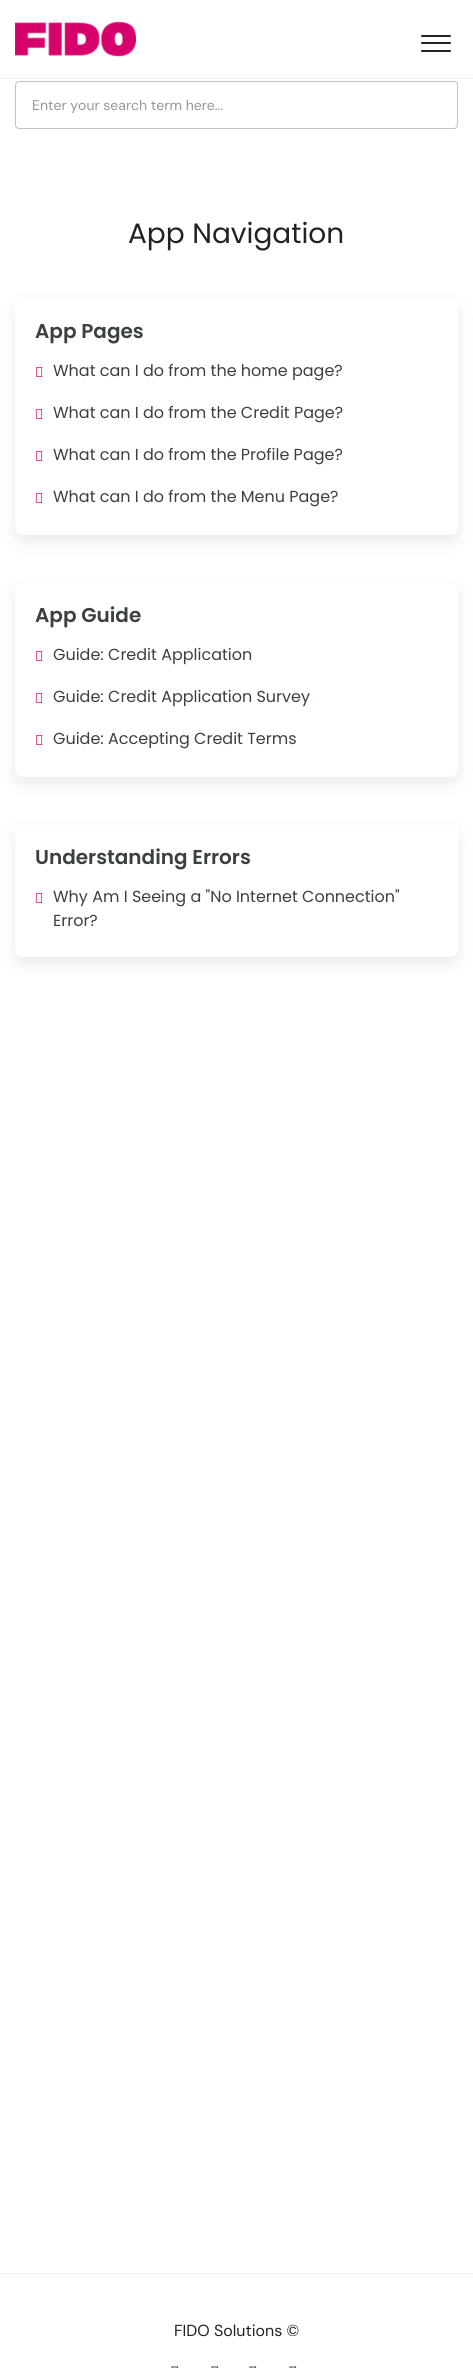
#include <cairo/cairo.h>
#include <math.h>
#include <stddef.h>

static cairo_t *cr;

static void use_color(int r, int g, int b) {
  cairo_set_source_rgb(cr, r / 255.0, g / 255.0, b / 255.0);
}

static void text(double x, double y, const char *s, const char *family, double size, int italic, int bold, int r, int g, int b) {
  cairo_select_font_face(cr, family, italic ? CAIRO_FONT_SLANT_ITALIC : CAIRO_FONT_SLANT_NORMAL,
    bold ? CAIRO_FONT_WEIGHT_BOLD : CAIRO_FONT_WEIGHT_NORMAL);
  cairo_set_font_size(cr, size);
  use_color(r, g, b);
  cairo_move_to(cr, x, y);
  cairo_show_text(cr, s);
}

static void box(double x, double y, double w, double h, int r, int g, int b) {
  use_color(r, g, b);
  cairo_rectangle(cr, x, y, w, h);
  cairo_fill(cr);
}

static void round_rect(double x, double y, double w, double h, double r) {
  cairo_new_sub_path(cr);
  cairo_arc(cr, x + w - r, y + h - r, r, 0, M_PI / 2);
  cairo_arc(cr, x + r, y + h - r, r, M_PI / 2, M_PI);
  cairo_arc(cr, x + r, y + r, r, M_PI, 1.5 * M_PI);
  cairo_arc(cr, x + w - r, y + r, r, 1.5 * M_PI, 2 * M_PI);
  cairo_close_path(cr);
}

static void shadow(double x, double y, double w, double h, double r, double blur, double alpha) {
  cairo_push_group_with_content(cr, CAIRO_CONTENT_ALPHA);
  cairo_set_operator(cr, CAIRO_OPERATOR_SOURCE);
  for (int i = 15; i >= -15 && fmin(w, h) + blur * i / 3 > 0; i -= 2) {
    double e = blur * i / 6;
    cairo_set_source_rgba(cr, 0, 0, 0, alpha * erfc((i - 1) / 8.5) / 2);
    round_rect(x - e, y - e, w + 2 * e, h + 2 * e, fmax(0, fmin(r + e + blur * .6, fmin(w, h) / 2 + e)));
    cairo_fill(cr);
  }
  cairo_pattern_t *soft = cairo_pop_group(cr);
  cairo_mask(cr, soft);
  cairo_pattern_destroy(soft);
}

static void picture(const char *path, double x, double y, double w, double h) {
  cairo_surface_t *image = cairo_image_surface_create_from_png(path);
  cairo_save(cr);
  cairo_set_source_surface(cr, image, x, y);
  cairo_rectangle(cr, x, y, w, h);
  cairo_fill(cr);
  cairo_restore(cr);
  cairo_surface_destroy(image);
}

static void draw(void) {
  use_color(255, 255, 255);
  cairo_paint(cr);
  box(0, 78, 473, 1, 241, 241, 241);
  picture("img_01.png", 15, 21, 121, 36);
  use_color(34, 34, 34);
  round_rect(421, 42, 30, 2, 1);
  cairo_fill(cr);
  round_rect(421, 35, 30, 2, 1);
  cairo_fill(cr);
  round_rect(421, 50, 30, 2, 1);
  cairo_fill(cr);
  round_rect(15.5, 81.5, 442, 47, 3.5);
  use_color(189, 194, 197);
  cairo_set_line_width(cr, 1);
  cairo_stroke(cr);
  use_color(5, 38, 48);
  shadow(15, 305, 443, 236, 8, 8, 0.1);
  use_color(255, 255, 255);
  round_rect(15, 299, 443, 236, 8);
  cairo_fill(cr);
  picture("img_02.png", 36, 367, 7, 10);
  picture("img_02.png", 36, 409, 7, 10);
  picture("img_02.png", 36, 451, 7, 10);
  picture("img_02.png", 36, 493, 7, 10);
  use_color(5, 38, 48);
  shadow(15, 589, 443, 194, 8, 8, 0.1);
  use_color(255, 255, 255);
  round_rect(15, 583, 443, 194, 8);
  cairo_fill(cr);
  picture("img_02.png", 36, 651, 7, 10);
  picture("img_02.png", 36, 693, 7, 10);
  picture("img_02.png", 36, 735, 7, 10);
  use_color(5, 38, 48);
  shadow(15, 831, 443, 132, 8, 8, 0.1);
  use_color(255, 255, 255);
  round_rect(15, 825, 443, 132, 8);
  cairo_fill(cr);
  picture("img_02.png", 36, 893, 7, 10);
  box(0, 2273, 473, 1, 241, 241, 241);
  picture("img_03.png", 171, 2366, 8, 2);
  picture("img_03.png", 211, 2366, 8, 2);
  picture("img_03.png", 249, 2366, 8, 2);
  picture("img_03.png", 289, 2366, 8, 2);
  text(32, 110, "Enter your search term here...", "DM Sans", 14, 0, 0, 151, 151, 151);
  text(128, 243, "App Navigation", "Poppins", 28, 0, 0, 34, 34, 34);
  text(35, 338, "App Pages", "Poppins SemiBold", 20, 0, 0, 58, 64, 64);
  text(53, 376, "What can I do from the home page?", "Poppins", 16, 0, 0, 58, 64, 64);
  text(53, 418, "What can I do from the Credit Page?", "Poppins", 16, 0, 0, 58, 64, 64);
  text(53, 460, "What can I do from the Profile Page?", "Poppins", 16, 0, 0, 58, 64, 64);
  text(53, 502, "What can I do from the Menu Page?", "Poppins", 16, 0, 0, 58, 64, 64);
  text(35, 622, "App Guide", "Poppins SemiBold", 20, 0, 0, 58, 64, 64);
  text(53, 660, "Guide: Credit Application", "Poppins", 16, 0, 0, 58, 64, 64);
  text(53, 702, "Guide: Credit Application Survey", "Poppins", 16, 0, 0, 58, 64, 64);
  text(53, 744, "Guide: Accepting Credit Terms", "Poppins", 16, 0, 0, 58, 64, 64);
  text(35, 864, "Understanding Errors", "Poppins SemiBold", 20, 0, 0, 58, 64, 64);
  text(53, 902, "Why Am I Seeing a \"No Internet Connection\"", "Poppins", 16, 0, 0, 58, 64, 64);
  text(53, 926, "Error?", "Poppins", 16, 0, 0, 58, 64, 64);
  text(174, 2336, "FIDO Solutions ©", "DM Sans", 16, 0, 0, 34, 34, 34);
}

int main(void) {
  cairo_surface_t *surface = cairo_image_surface_create(CAIRO_FORMAT_RGB24, 473, 2368);
  cr = cairo_create(surface);
  cairo_font_options_t *options = cairo_font_options_create();
  cairo_font_options_set_hint_metrics(options, CAIRO_HINT_METRICS_OFF);
  cairo_font_options_set_hint_style(options, CAIRO_HINT_STYLE_NONE);
  cairo_set_font_options(cr, options);
  cairo_set_miter_limit(cr, 4);
  draw();
  cairo_surface_write_to_png(surface, "out.png");
  cairo_font_options_destroy(options);
  cairo_destroy(cr);
  cairo_surface_destroy(surface);
  return 0;
}
